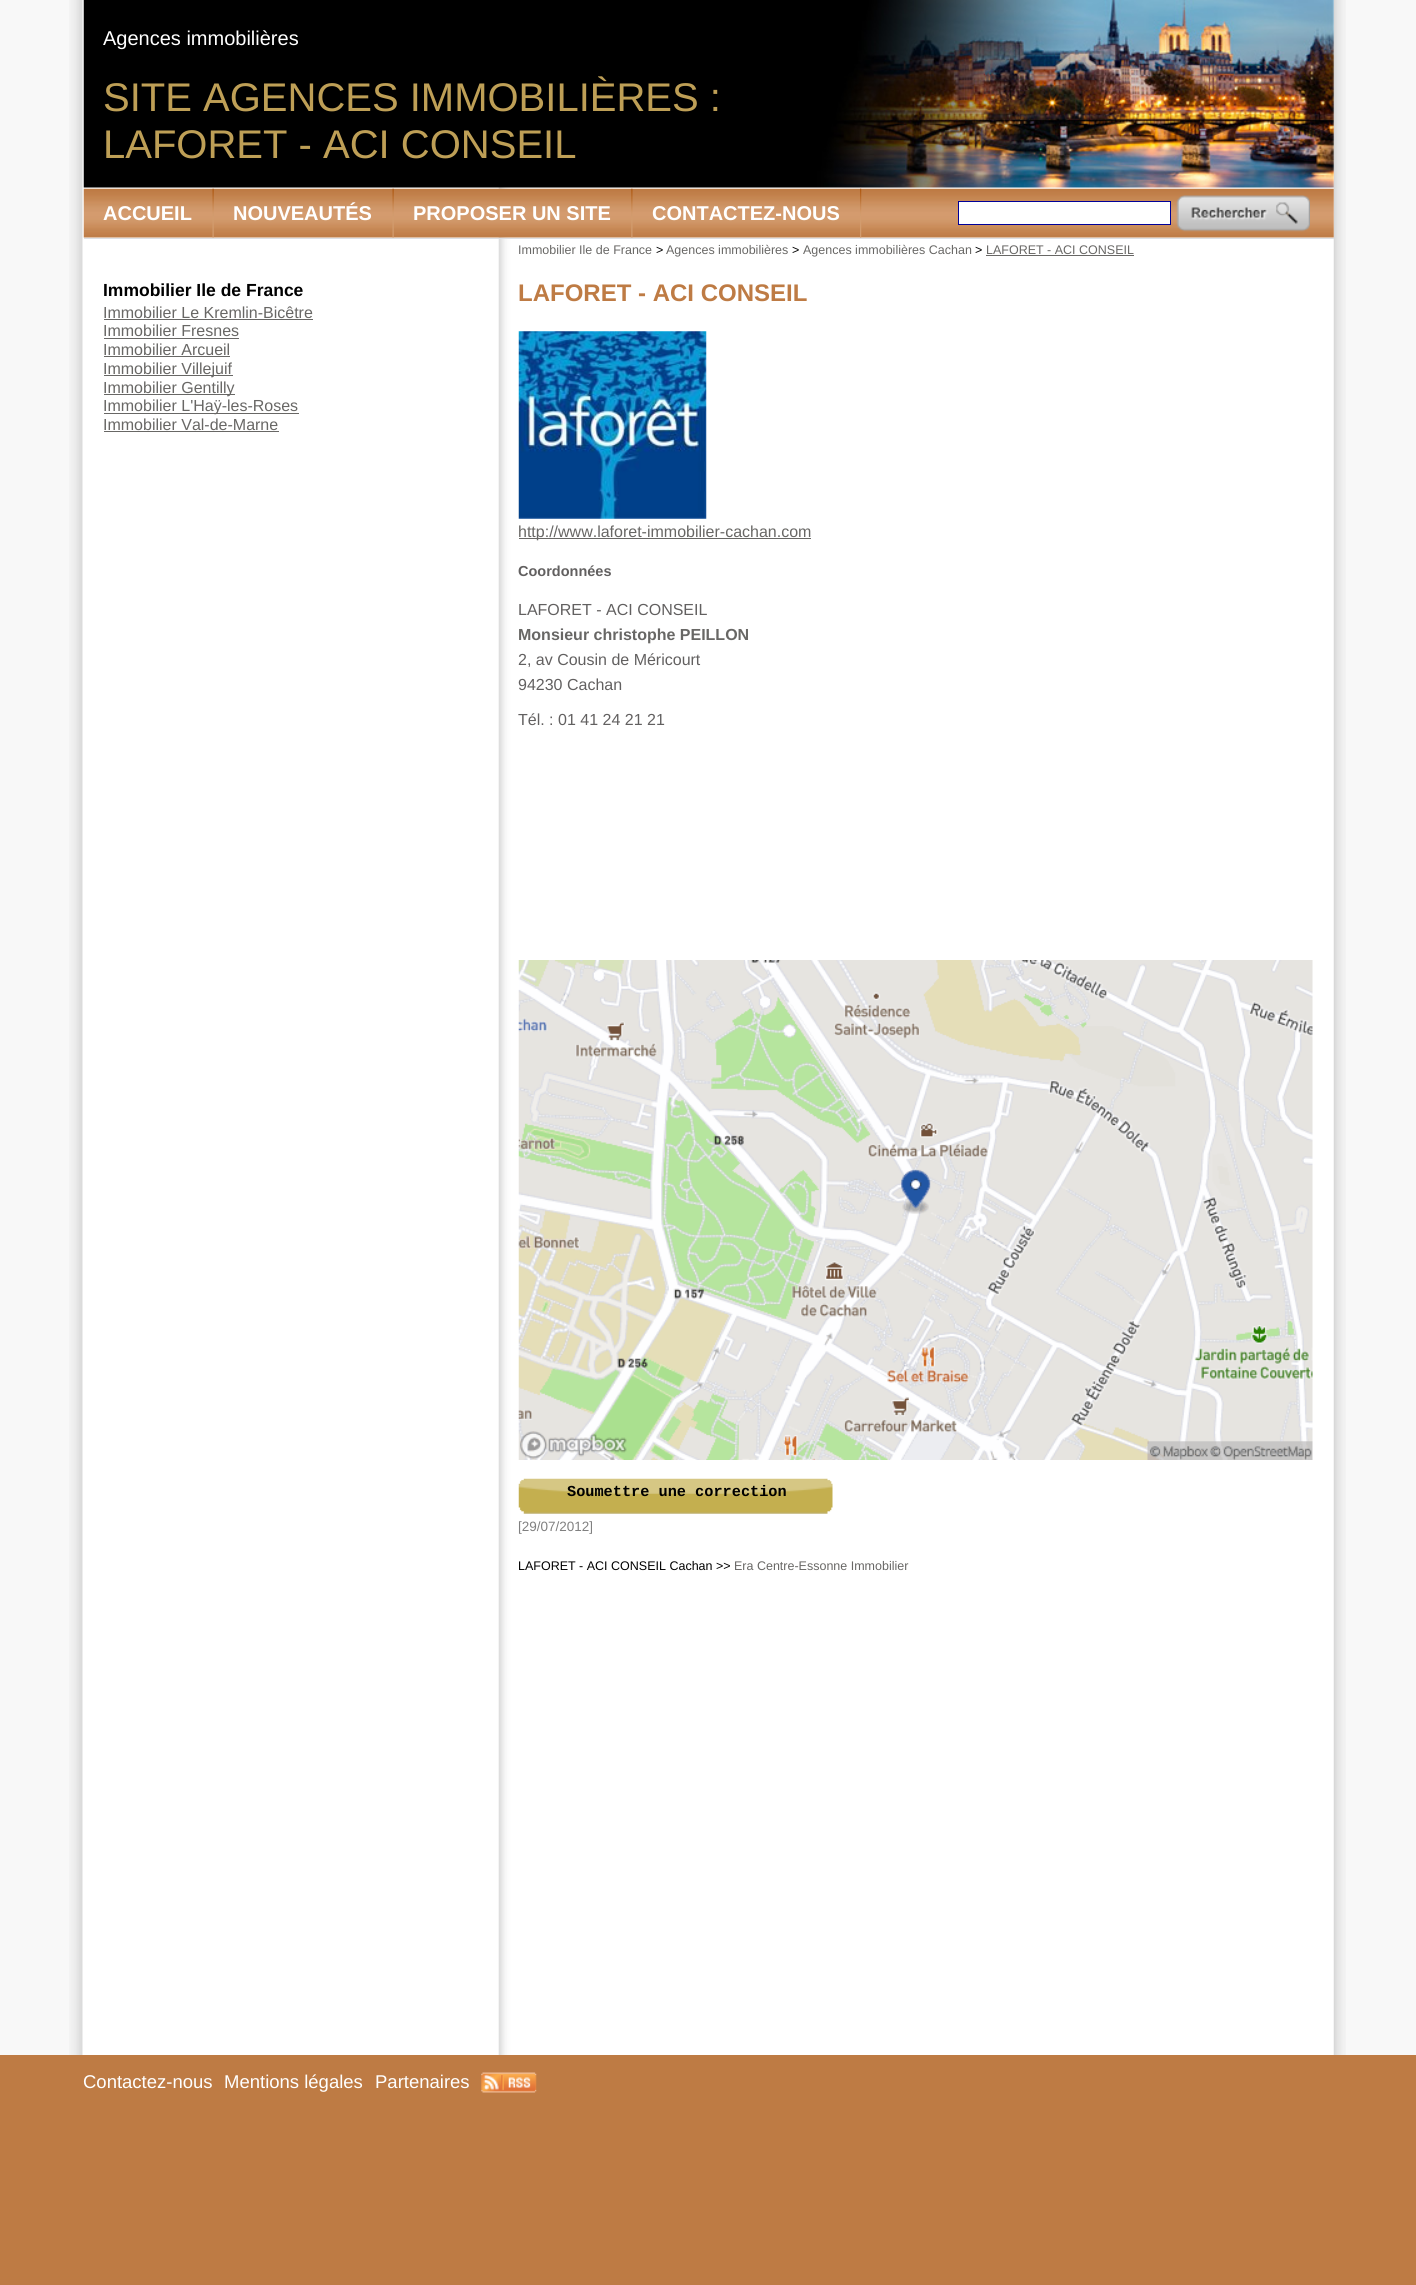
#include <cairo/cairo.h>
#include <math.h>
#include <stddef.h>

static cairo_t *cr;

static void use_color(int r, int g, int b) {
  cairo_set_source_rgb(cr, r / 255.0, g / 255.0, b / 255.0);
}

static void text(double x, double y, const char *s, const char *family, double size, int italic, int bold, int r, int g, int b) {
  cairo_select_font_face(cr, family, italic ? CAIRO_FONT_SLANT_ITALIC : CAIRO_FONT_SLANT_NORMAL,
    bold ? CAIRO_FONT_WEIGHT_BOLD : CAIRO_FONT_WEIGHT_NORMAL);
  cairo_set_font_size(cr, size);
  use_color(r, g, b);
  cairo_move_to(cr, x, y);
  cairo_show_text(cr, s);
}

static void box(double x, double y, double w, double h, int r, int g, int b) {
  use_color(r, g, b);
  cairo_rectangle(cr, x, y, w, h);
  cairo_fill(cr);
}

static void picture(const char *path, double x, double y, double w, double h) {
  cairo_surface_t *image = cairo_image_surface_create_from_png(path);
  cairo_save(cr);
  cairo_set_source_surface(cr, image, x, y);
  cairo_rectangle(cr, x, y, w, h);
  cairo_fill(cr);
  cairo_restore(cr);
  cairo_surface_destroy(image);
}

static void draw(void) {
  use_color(248, 248, 248);
  cairo_paint(cr);
  picture("img_01.png", 69, 0, 1277, 2055);
  picture("img_02.png", 498, 0, 836, 2055);
  picture("img_03.png", 83, 0, 1251, 188);
  picture("img_04.png", 83, 188, 1251, 50);
  box(84, 238, 1250, 1, 220, 223, 227);
  picture("img_05.png", 212, 188, 2, 50);
  picture("img_05.png", 392, 188, 2, 50);
  picture("img_06.png", 631, 188, 2, 50);
  picture("img_07.png", 860, 188, 2, 50);
  use_color(255, 255, 255);
  cairo_rectangle(cr, 958.5, 201.5, 212, 23);
  cairo_fill_preserve(cr);
  use_color(0, 0, 153);
  cairo_set_line_width(cr, 1);
  cairo_stroke(cr);
  picture("img_08.png", 1176, 195, 134, 37);
  box(104, 319, 209, 1, 104, 103, 101);
  box(104, 338, 135, 1, 104, 103, 101);
  box(104, 356, 126, 1, 104, 103, 101);
  box(104, 375, 129, 1, 104, 103, 101);
  box(104, 394, 131, 1, 104, 103, 101);
  box(104, 413, 195, 1, 104, 103, 101);
  box(104, 431, 175, 1, 104, 103, 101);
  box(986, 255, 148, 1, 104, 103, 101);
  picture("img_09.png", 518, 331, 189, 188);
  box(519, 538, 292, 1, 104, 103, 101);
  picture("img_10.png", 518, 960, 795, 500);
  picture("img_11.png", 518, 1478, 315, 36);
  box(0, 2055, 1416, 230, 190, 123, 68);
  picture("img_12.png", 481, 2072, 56, 21);
  text(103, 45, "Agences immobilières", "Liberation Sans", 20, 0, 0, 255, 255, 255);
  text(103, 111, "SITE AGENCES IMMOBILIÈRES :", "Liberation Sans", 40, 0, 0, 190, 159, 86);
  text(103, 158, "LAFORET - ACI CONSEIL", "Liberation Sans", 40, 0, 0, 190, 159, 86);
  text(103, 220, "ACCUEIL", "Liberation Sans", 20, 0, 1, 255, 255, 255);
  text(233, 220, "NOUVEAUTÉS", "Liberation Sans", 20, 0, 1, 255, 255, 255);
  text(413, 220, "PROPOSER UN SITE", "Liberation Sans", 20, 0, 1, 255, 255, 255);
  text(652, 220, "CONTACTEZ-NOUS", "Liberation Sans", 20, 0, 1, 255, 255, 255);
  text(103, 296, "Immobilier Ile de France", "Liberation Sans", 17.5, 0, 1, 0, 0, 0);
  text(103, 318, "Immobilier Le Kremlin-Bicêtre", "Liberation Sans", 16, 0, 0, 104, 103, 101);
  text(103, 336, "Immobilier Fresnes", "Liberation Sans", 16, 0, 0, 104, 103, 101);
  text(103, 355, "Immobilier Arcueil", "Liberation Sans", 16, 0, 0, 104, 103, 101);
  text(103, 374, "Immobilier Villejuif", "Liberation Sans", 16, 0, 0, 104, 103, 101);
  text(103, 393, "Immobilier Gentilly", "Liberation Sans", 16, 0, 0, 104, 103, 101);
  text(103, 411, "Immobilier L'Haÿ-les-Roses", "Liberation Sans", 16, 0, 0, 104, 103, 101);
  text(103, 430, "Immobilier Val-de-Marne", "Liberation Sans", 16, 0, 0, 104, 103, 101);
  text(518, 254, "Immobilier Ile de France", "Liberation Sans", 12.5, 0, 0, 104, 103, 101);
  text(656, 254, ">", "Liberation Sans", 12.5, 0, 0, 0, 0, 0);
  text(666, 254, "Agences immobilières", "Liberation Sans", 12.5, 0, 0, 104, 103, 101);
  text(792, 254, ">", "Liberation Sans", 12.5, 0, 0, 0, 0, 0);
  text(803, 254, "Agences immobilières Cachan", "Liberation Sans", 12.5, 0, 0, 104, 103, 101);
  text(975, 254, ">", "Liberation Sans", 12.5, 0, 0, 0, 0, 0);
  text(986, 254, "LAFORET - ACI CONSEIL", "Liberation Sans", 12.5, 0, 0, 104, 103, 101);
  text(518, 301, "LAFORET - ACI CONSEIL", "Liberation Sans", 24, 0, 1, 190, 123, 68);
  text(518, 537, "http://www.laforet-immobilier-cachan.com", "Liberation Sans", 16, 0, 0, 104, 103, 101);
  text(518, 576, "Coordonnées", "Liberation Sans", 14.5, 0, 1, 98, 96, 96);
  text(518, 615, "LAFORET - ACI CONSEIL", "Liberation Sans", 16, 0, 0, 98, 96, 96);
  text(518, 640, "Monsieur christophe PEILLON", "Liberation Sans", 16, 0, 1, 104, 103, 101);
  text(518, 665, "2, av Cousin de Méricourt", "Liberation Sans", 16, 0, 0, 98, 96, 96);
  text(518, 690, "94230 Cachan", "Liberation Sans", 16, 0, 0, 98, 96, 96);
  text(518, 725, "Tél. : 01 41 24 21 21", "Liberation Sans", 16, 0, 0, 98, 96, 96);
  text(567, 1496, "Soumettre une correction", "Liberation Mono", 15.25, 0, 1, 0, 0, 0);
  text(518, 1531, "[29/07/2012]", "Liberation Sans", 13.5, 0, 0, 128, 128, 128);
  text(518, 1570, "LAFORET - ACI CONSEIL Cachan >>", "Liberation Sans", 12.5, 0, 0, 0, 0, 0);
  text(734, 1570, "Era Centre-Essonne Immobilier", "Liberation Sans", 12.5, 0, 0, 104, 103, 101);
  text(83, 2088, "Contactez-nous", "Liberation Sans", 18.5, 0, 0, 255, 255, 255);
  text(224, 2088, "Mentions légales", "Liberation Sans", 18.5, 0, 0, 255, 255, 255);
  text(375, 2088, "Partenaires", "Liberation Sans", 18.5, 0, 0, 255, 255, 255);
}

int main(void) {
  cairo_surface_t *surface = cairo_image_surface_create(CAIRO_FORMAT_RGB24, 1416, 2285);
  cr = cairo_create(surface);
  cairo_font_options_t *options = cairo_font_options_create();
  cairo_font_options_set_hint_metrics(options, CAIRO_HINT_METRICS_OFF);
  cairo_font_options_set_hint_style(options, CAIRO_HINT_STYLE_NONE);
  cairo_set_font_options(cr, options);
  cairo_set_miter_limit(cr, 4);
  draw();
  cairo_surface_write_to_png(surface, "out.png");
  cairo_font_options_destroy(options);
  cairo_destroy(cr);
  cairo_surface_destroy(surface);
  return 0;
}
